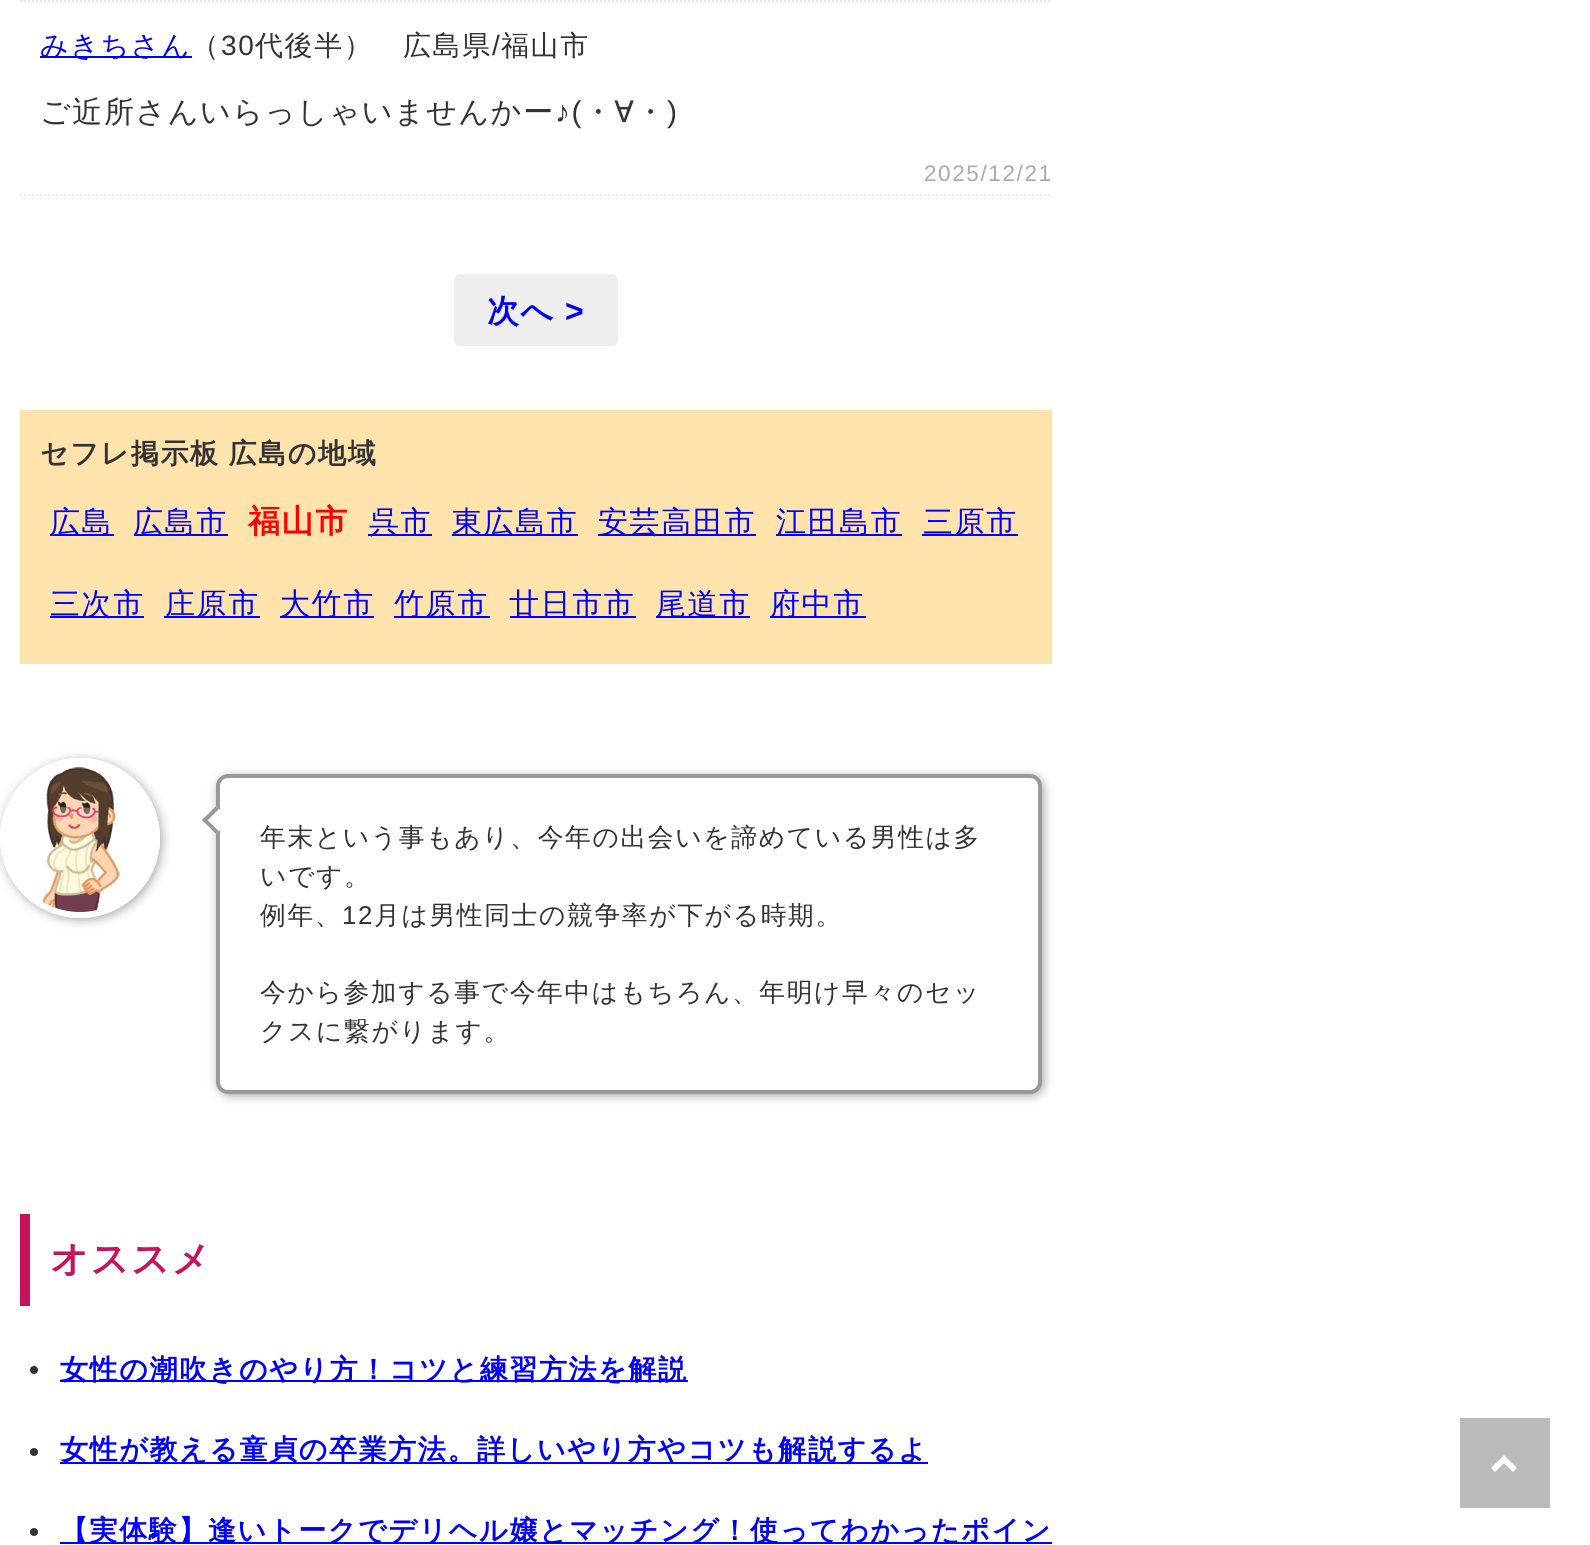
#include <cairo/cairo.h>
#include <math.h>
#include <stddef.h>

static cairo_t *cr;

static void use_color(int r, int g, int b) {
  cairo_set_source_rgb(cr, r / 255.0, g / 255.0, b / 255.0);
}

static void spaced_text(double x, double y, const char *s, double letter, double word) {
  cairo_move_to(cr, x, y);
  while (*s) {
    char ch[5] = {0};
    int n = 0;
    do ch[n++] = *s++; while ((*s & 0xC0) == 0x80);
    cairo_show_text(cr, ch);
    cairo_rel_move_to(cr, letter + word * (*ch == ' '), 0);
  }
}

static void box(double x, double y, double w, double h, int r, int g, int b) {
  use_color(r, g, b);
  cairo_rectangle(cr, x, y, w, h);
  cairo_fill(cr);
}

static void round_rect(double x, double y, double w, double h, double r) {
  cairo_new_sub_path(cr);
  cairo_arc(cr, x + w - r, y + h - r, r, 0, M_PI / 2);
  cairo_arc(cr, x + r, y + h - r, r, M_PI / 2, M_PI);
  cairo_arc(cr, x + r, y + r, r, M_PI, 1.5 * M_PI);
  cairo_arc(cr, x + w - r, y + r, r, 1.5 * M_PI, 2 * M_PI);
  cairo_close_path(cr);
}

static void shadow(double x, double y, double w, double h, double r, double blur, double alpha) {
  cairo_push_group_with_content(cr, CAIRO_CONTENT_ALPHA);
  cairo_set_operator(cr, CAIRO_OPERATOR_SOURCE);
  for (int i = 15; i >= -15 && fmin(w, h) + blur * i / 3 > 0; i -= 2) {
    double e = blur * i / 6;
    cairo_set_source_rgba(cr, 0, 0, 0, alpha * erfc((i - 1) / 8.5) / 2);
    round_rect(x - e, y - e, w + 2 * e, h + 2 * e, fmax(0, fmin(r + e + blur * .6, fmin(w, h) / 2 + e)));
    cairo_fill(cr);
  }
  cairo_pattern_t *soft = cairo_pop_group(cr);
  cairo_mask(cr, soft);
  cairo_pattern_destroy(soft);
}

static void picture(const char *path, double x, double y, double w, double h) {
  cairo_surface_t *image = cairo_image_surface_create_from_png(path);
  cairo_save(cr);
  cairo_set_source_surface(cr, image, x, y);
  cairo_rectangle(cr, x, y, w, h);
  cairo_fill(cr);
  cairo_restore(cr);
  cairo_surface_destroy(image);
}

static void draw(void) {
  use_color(255, 255, 255);
  cairo_paint(cr);
  box(20, 0, 1032, 2, 255, 249, 237);
  cairo_new_path(cr);
  cairo_move_to(cr, 20, 1);
  cairo_line_to(cr, 1052, 1);
  use_color(233, 233, 233);
  cairo_set_dash(cr, (double[]){2, 2}, 2, 0);
  cairo_stroke(cr);
  cairo_new_path(cr);
  cairo_move_to(cr, 20, 195);
  cairo_line_to(cr, 1052, 195);
  cairo_stroke(cr);
  box(40, 56, 152, 2, 0, 0, 255);
  use_color(238, 238, 238);
  round_rect(454, 274, 164, 72, 6);
  cairo_fill(cr);
  box(20, 410, 1032, 254, 255, 227, 173);
  box(50, 534, 64, 2, 0, 0, 255);
  box(134, 534, 94, 2, 0, 0, 255);
  box(368, 534, 64, 2, 0, 0, 255);
  box(452, 534, 126, 2, 0, 0, 255);
  box(598, 534, 158, 2, 0, 0, 255);
  box(776, 534, 126, 2, 0, 0, 255);
  box(922, 534, 96, 2, 0, 0, 255);
  box(50, 616, 94, 2, 0, 0, 255);
  box(164, 616, 96, 2, 0, 0, 255);
  box(280, 616, 94, 2, 0, 0, 255);
  box(394, 616, 96, 2, 0, 0, 255);
  box(510, 616, 126, 2, 0, 0, 255);
  box(656, 616, 94, 2, 0, 0, 255);
  box(770, 616, 96, 2, 0, 0, 255);
  use_color(170, 170, 170);
  shadow(218, 776, 826, 320, 12, 5, 1);
  use_color(255, 255, 255);
  round_rect(218, 776, 822, 316, 10);
  cairo_fill_preserve(cr);
  use_color(153, 153, 153);
  cairo_set_line_width(cr, 4);
  cairo_set_dash(cr, NULL, 0, 0);
  cairo_stroke(cr);
  cairo_save(cr);
  cairo_set_fill_rule(cr, CAIRO_FILL_RULE_EVEN_ODD);
  cairo_new_path(cr);
  cairo_move_to(cr, 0, 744);
  cairo_line_to(cr, 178, 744);
  cairo_line_to(cr, 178, 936);
  cairo_line_to(cr, 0, 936);
  cairo_close_path(cr);
  cairo_move_to(cr, 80, 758);
  cairo_curve_to(cr, 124, 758, 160, 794, 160, 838);
  cairo_curve_to(cr, 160, 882, 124, 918, 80, 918);
  cairo_curve_to(cr, 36, 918, 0, 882, 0, 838);
  cairo_curve_to(cr, 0, 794, 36, 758, 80, 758);
  cairo_close_path(cr);
  cairo_clip(cr);
  use_color(170, 170, 170);
  shadow(2, 760, 160, 160, 80, 5, 1);
  cairo_restore(cr);
  picture("img_01.png", 41, 767, 79, 145);
  cairo_arc(cr, 80, 838, 77, 0, 2 * M_PI);
  use_color(255, 255, 255);
  cairo_set_line_width(cr, 6);
  cairo_stroke(cr);
  cairo_new_path(cr);
  cairo_move_to(cr, 230.5, 820);
  cairo_line_to(cr, 216, 834);
  cairo_line_to(cr, 202, 820);
  cairo_line_to(cr, 216, 806);
  cairo_close_path(cr);
  cairo_fill(cr);
  use_color(153, 153, 153);
  cairo_new_path(cr);
  cairo_move_to(cr, 219, 831.5);
  cairo_line_to(cr, 216, 834);
  cairo_line_to(cr, 202, 820);
  cairo_line_to(cr, 205, 817.5);
  cairo_close_path(cr);
  cairo_fill(cr);
  cairo_new_path(cr);
  cairo_move_to(cr, 219, 809);
  cairo_line_to(cr, 205, 823);
  cairo_line_to(cr, 202, 820);
  cairo_line_to(cr, 216, 806);
  cairo_close_path(cr);
  cairo_fill(cr);
  box(20, 1214, 10, 92, 198, 19, 91);
  use_color(51, 51, 51);
  cairo_arc(cr, 34, 1370, 4, 0, 2 * M_PI);
  cairo_fill(cr);
  box(60, 1380, 628, 2, 0, 0, 255);
  use_color(51, 51, 51);
  cairo_arc(cr, 34, 1452, 4, 0, 2 * M_PI);
  cairo_fill(cr);
  box(60, 1462, 868, 2, 0, 0, 255);
  use_color(51, 51, 51);
  cairo_arc(cr, 34, 1532, 4, 0, 2 * M_PI);
  cairo_fill(cr);
  box(60, 1542, 992, 2, 0, 0, 255);
  box(1460, 1418, 90, 90, 187, 187, 187);
  picture("img_02.png", 1491, 1455, 26, 17);
  cairo_select_font_face(cr, "WenQuanYi Zen Hei Medium", CAIRO_FONT_SLANT_NORMAL, CAIRO_FONT_WEIGHT_NORMAL);
  cairo_set_font_size(cr, 28);
  use_color(0, 0, 255);
  spaced_text(40, 55, "みきちさん", 1.6, 0);
  use_color(51, 51, 51);
  spaced_text(191, 55, "（", 1.6, 0);
  cairo_select_font_face(cr, "Liberation Sans", CAIRO_FONT_SLANT_NORMAL, CAIRO_FONT_WEIGHT_NORMAL);
  spaced_text(221, 55, "30", 1.6, 0);
  cairo_select_font_face(cr, "WenQuanYi Zen Hei Medium", CAIRO_FONT_SLANT_NORMAL, CAIRO_FONT_WEIGHT_NORMAL);
  spaced_text(255, 55, "代後半）", 1.6, 0);
  spaced_text(403, 55, "広島県", 1.6, 0);
  cairo_select_font_face(cr, "Liberation Sans", CAIRO_FONT_SLANT_NORMAL, CAIRO_FONT_WEIGHT_NORMAL);
  spaced_text(492, 55, "/", 1.6, 0);
  cairo_select_font_face(cr, "WenQuanYi Zen Hei Medium", CAIRO_FONT_SLANT_NORMAL, CAIRO_FONT_WEIGHT_NORMAL);
  spaced_text(501, 55, "福山市", 1.6, 0);
  cairo_set_font_size(cr, 30);
  spaced_text(40, 122, "ご近所さんいらっしゃいませんかー", 1.6, 0);
  cairo_select_font_face(cr, "Liberation Sans", CAIRO_FONT_SLANT_NORMAL, CAIRO_FONT_WEIGHT_NORMAL);
  spaced_text(555, 122, "♪(", 1.6, 0);
  cairo_select_font_face(cr, "WenQuanYi Zen Hei Medium", CAIRO_FONT_SLANT_NORMAL, CAIRO_FONT_WEIGHT_NORMAL);
  spaced_text(583, 122, "・∀・", 1.6, 0);
  cairo_select_font_face(cr, "Liberation Sans", CAIRO_FONT_SLANT_NORMAL, CAIRO_FONT_WEIGHT_NORMAL);
  spaced_text(667, 122, ")", 1.6, 0);
  cairo_set_font_size(cr, 22.5);
  use_color(170, 170, 170);
  spaced_text(924, 181, "2025/12/21", 1.6, 0);
  cairo_select_font_face(cr, "WenQuanYi Zen Hei", CAIRO_FONT_SLANT_NORMAL, CAIRO_FONT_WEIGHT_BOLD);
  cairo_set_font_size(cr, 32);
  use_color(0, 0, 255);
  spaced_text(487, 322, "次へ", 1.6, 0);
  cairo_select_font_face(cr, "Liberation Sans", CAIRO_FONT_SLANT_NORMAL, CAIRO_FONT_WEIGHT_BOLD);
  spaced_text(565, 322, ">", 1.6, 0);
  cairo_select_font_face(cr, "WenQuanYi Zen Hei", CAIRO_FONT_SLANT_NORMAL, CAIRO_FONT_WEIGHT_BOLD);
  cairo_set_font_size(cr, 28);
  use_color(51, 51, 51);
  spaced_text(40, 463, "セフレ掲示板 広島の地域", 1.6, -1);
  cairo_select_font_face(cr, "WenQuanYi Zen Hei Medium", CAIRO_FONT_SLANT_NORMAL, CAIRO_FONT_WEIGHT_NORMAL);
  cairo_set_font_size(cr, 30);
  use_color(0, 0, 255);
  spaced_text(50, 532, "広島", 1.6, 0);
  spaced_text(133, 532, "広島市", 1.6, 0);
  cairo_select_font_face(cr, "WenQuanYi Zen Hei", CAIRO_FONT_SLANT_NORMAL, CAIRO_FONT_WEIGHT_BOLD);
  cairo_set_font_size(cr, 32);
  use_color(255, 0, 0);
  spaced_text(248, 532, "福山市", 1.6, 0);
  cairo_select_font_face(cr, "WenQuanYi Zen Hei Medium", CAIRO_FONT_SLANT_NORMAL, CAIRO_FONT_WEIGHT_NORMAL);
  cairo_set_font_size(cr, 30);
  use_color(0, 0, 255);
  spaced_text(369, 532, "呉市", 1.6, 0);
  spaced_text(452, 532, "東広島市", 1.6, 0);
  spaced_text(598, 532, "安芸高田市", 1.6, 0);
  spaced_text(776, 532, "江田島市", 1.6, 0);
  spaced_text(923, 532, "三原市", 1.6, 0);
  spaced_text(50, 614, "三次市", 1.6, 0);
  spaced_text(165, 614, "庄原市", 1.6, 0);
  spaced_text(280, 614, "大竹市", 1.6, 0);
  spaced_text(394, 614, "竹原市", 1.6, 0);
  spaced_text(509, 614, "廿日市市", 1.6, 0);
  spaced_text(656, 614, "尾道市", 1.6, 0);
  spaced_text(770, 614, "府中市", 1.6, 0);
  cairo_set_font_size(cr, 25.8);
  use_color(51, 51, 51);
  spaced_text(260, 846, "年末という事もあり、今年の出会いを諦めている男性は多", 1.6, 0);
  spaced_text(260, 885, "いです。", 1.6, 0);
  spaced_text(260, 924, "例年、", 1.6, 0);
  cairo_select_font_face(cr, "Liberation Sans", CAIRO_FONT_SLANT_NORMAL, CAIRO_FONT_WEIGHT_NORMAL);
  spaced_text(342, 924, "12", 1.6, 0);
  cairo_select_font_face(cr, "WenQuanYi Zen Hei Medium", CAIRO_FONT_SLANT_NORMAL, CAIRO_FONT_WEIGHT_NORMAL);
  spaced_text(374, 924, "月は男性同士の競争率が下がる時期。", 1.6, 0);
  spaced_text(260, 1001, "今から参加する事で今年中はもちろん、年明け早々のセッ", 1.6, 0);
  spaced_text(260, 1040, "クスに繋がります。", 1.6, 0);
  cairo_select_font_face(cr, "WenQuanYi Zen Hei", CAIRO_FONT_SLANT_NORMAL, CAIRO_FONT_WEIGHT_BOLD);
  cairo_set_font_size(cr, 38);
  use_color(198, 19, 91);
  spaced_text(50, 1272, "オススメ", 1.6, 0);
  cairo_set_font_size(cr, 28);
  use_color(0, 0, 255);
  spaced_text(60, 1379, "女性の潮吹きのやり方！コツと練習方法を解説", 1.6, 0);
  spaced_text(60, 1459, "女性が教える童貞の卒業方法。詳しいやり方やコツも解説するよ", 1.6, 0);
  spaced_text(60, 1540, "【実体験】逢いトークでデリヘル嬢とマッチング！使ってわかったポイン", 1.6, 0);
}

int main(void) {
  cairo_surface_t *surface = cairo_image_surface_create(CAIRO_FORMAT_RGB24, 1590, 1545);
  cr = cairo_create(surface);
  cairo_font_options_t *options = cairo_font_options_create();
  cairo_font_options_set_hint_metrics(options, CAIRO_HINT_METRICS_OFF);
  cairo_font_options_set_hint_style(options, CAIRO_HINT_STYLE_NONE);
  cairo_set_font_options(cr, options);
  cairo_set_miter_limit(cr, 4);
  draw();
  cairo_surface_write_to_png(surface, "out.png");
  cairo_font_options_destroy(options);
  cairo_destroy(cr);
  cairo_surface_destroy(surface);
  return 0;
}
